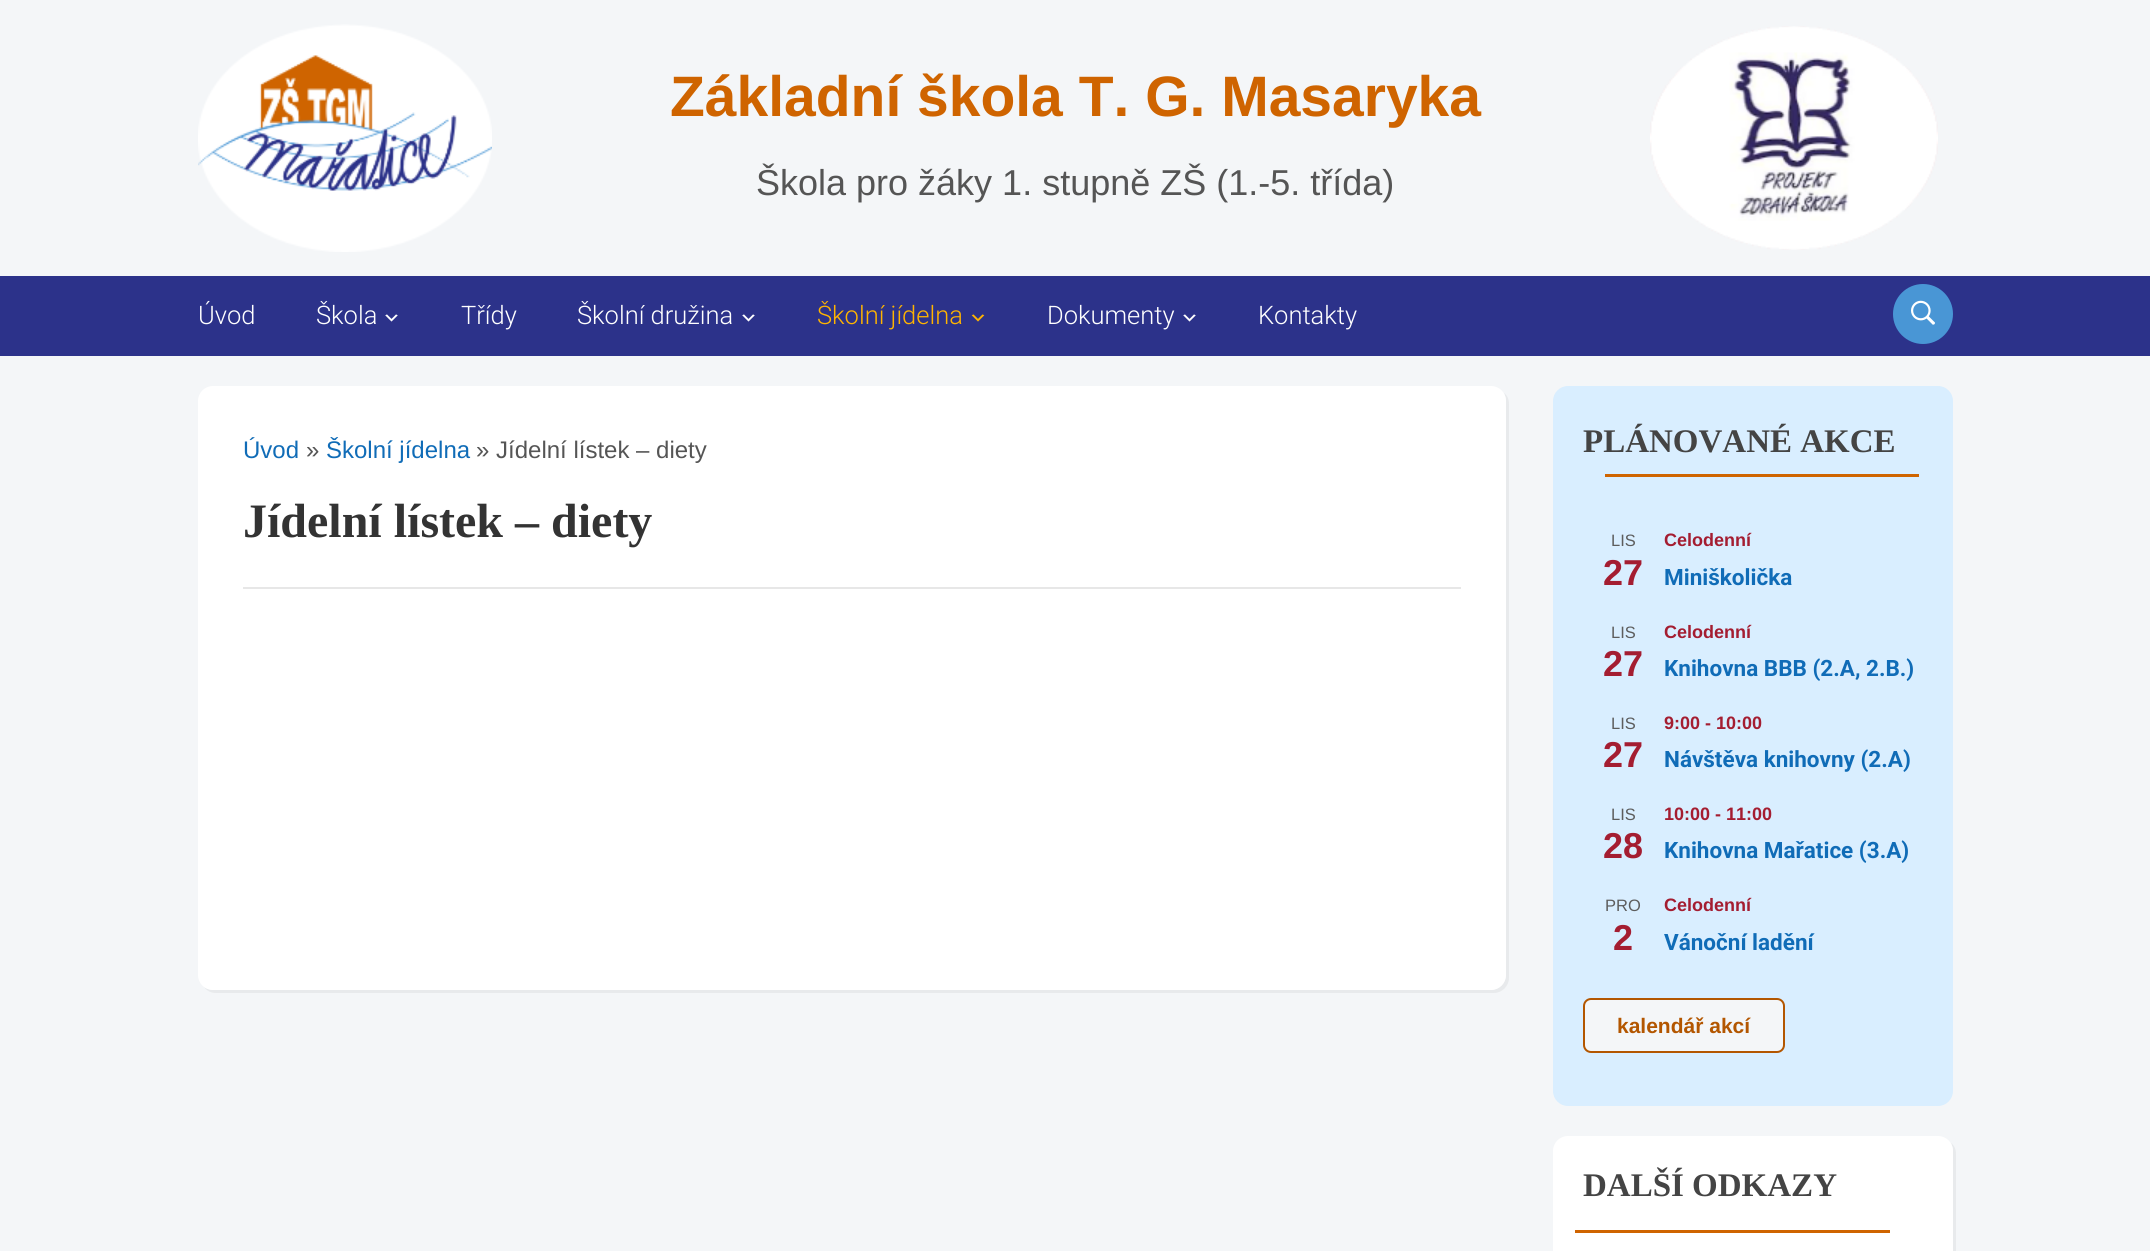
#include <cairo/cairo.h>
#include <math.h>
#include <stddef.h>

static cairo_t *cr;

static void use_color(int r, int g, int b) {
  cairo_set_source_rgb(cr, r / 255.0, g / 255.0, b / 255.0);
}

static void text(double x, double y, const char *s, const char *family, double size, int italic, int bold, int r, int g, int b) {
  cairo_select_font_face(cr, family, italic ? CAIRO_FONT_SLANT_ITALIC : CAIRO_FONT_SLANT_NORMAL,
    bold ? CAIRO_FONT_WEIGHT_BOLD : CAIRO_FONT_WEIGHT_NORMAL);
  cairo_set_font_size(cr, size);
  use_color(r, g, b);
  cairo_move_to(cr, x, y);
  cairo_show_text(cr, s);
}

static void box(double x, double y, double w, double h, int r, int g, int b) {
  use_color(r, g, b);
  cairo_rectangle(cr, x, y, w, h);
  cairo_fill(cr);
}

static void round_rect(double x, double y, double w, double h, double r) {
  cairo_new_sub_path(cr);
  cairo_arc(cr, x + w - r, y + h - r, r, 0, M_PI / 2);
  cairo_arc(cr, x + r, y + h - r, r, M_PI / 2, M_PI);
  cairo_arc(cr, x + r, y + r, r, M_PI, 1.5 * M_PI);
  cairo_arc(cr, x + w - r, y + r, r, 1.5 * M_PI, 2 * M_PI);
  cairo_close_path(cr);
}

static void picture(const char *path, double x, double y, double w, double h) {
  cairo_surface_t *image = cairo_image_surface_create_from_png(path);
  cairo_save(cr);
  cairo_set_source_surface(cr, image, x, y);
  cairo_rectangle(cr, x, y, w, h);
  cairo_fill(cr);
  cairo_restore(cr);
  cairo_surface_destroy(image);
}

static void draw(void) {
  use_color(244, 246, 248);
  cairo_paint(cr);
  picture("img_01.png", 198, 24, 294, 228);
  picture("img_02.png", 1650, 26, 288, 224);
  box(0, 276, 2150, 80, 44, 50, 138);
  picture("img_03.png", 385, 314, 13, 8);
  picture("img_03.png", 742, 314, 13, 8);
  picture("img_04.png", 971, 314, 14, 8);
  picture("img_03.png", 1183, 314, 13, 8);
  use_color(73, 150, 213);
  cairo_arc(cr, 1923, 314, 30, 0, 2 * M_PI);
  cairo_fill(cr);
  picture("img_05.png", 1911, 300, 24, 25);
  use_color(232, 234, 236);
  cairo_new_path(cr);
  cairo_move_to(cr, 204, 987);
  cairo_curve_to(cr, 207, 991, 211, 993, 216, 993);
  cairo_line_to(cr, 1494, 993);
  cairo_curve_to(cr, 1502, 993, 1509, 986, 1509, 978);
  cairo_line_to(cr, 1509, 404);
  cairo_curve_to(cr, 1509, 399, 1507, 395, 1504, 393);
  cairo_curve_to(cr, 1505, 395, 1506, 398, 1506, 400);
  cairo_line_to(cr, 1506, 975);
  cairo_curve_to(cr, 1506, 983, 1499, 990, 1491, 990);
  cairo_line_to(cr, 213, 990);
  cairo_curve_to(cr, 210, 990, 207, 989, 204, 987);
  cairo_close_path(cr);
  cairo_fill(cr);
  use_color(255, 255, 255);
  round_rect(198, 386, 1308, 604, 15);
  cairo_fill(cr);
  box(243, 587, 1218, 2, 231, 231, 231);
  use_color(217, 238, 255);
  round_rect(1553, 386, 400, 720, 15);
  cairo_fill(cr);
  box(1605, 474, 314, 3, 207, 100, 0);
  use_color(244, 246, 248);
  round_rect(1584, 999, 200, 53, 7);
  cairo_fill_preserve(cr);
  use_color(179, 86, 0);
  cairo_stroke(cr);
  use_color(232, 234, 236);
  cairo_new_path(cr);
  cairo_move_to(cr, 1560, 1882);
  cairo_curve_to(cr, 1562, 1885, 1566, 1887, 1571, 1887);
  cairo_line_to(cr, 1941, 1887);
  cairo_curve_to(cr, 1949, 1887, 1956, 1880, 1956, 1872);
  cairo_line_to(cr, 1956, 1154);
  cairo_curve_to(cr, 1956, 1149, 1954, 1145, 1951, 1143);
  cairo_curve_to(cr, 1952, 1145, 1953, 1148, 1953, 1150);
  cairo_line_to(cr, 1953, 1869);
  cairo_curve_to(cr, 1953, 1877, 1946, 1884, 1938, 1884);
  cairo_line_to(cr, 1568, 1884);
  cairo_curve_to(cr, 1565, 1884, 1562, 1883, 1560, 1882);
  cairo_close_path(cr);
  cairo_fill(cr);
  use_color(255, 255, 255);
  round_rect(1553, 1136, 400, 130, 15);
  cairo_fill(cr);
  box(1575, 1230, 315, 3, 207, 100, 0);
  text(670, 116, "Základní škola T. G. Masaryka", "Liberation Sans", 57, 0, 1, 207, 100, 0);
  text(756, 195, "Škola pro žáky 1. stupně ZŠ (1.-5. třída)", "Liberation Sans", 36, 0, 0, 85, 85, 85);
  text(198, 324, "Úvod", "Roboto Light", 25.5, 0, 0, 255, 255, 255);
  text(316, 324, "Škola", "Roboto Light", 25.5, 0, 0, 255, 255, 255);
  text(461, 324, "Třídy", "Roboto Light", 25.5, 0, 0, 255, 255, 255);
  text(577, 324, "Školní družina", "Roboto Light", 25.5, 0, 0, 255, 255, 255);
  text(817, 324, "Školní jídelna", "Roboto Light", 25.5, 0, 0, 255, 180, 0);
  text(1047, 324, "Dokumenty", "Roboto Light", 25.5, 0, 0, 255, 255, 255);
  text(1258, 324, "Kontakty", "Roboto Light", 25.5, 0, 0, 255, 255, 255);
  text(243, 458, "Úvod", "Liberation Sans", 24, 0, 0, 16, 108, 183);
  text(306, 458, "»", "Liberation Sans", 24, 0, 0, 85, 85, 85);
  text(326, 458, "Školní jídelna", "Liberation Sans", 24, 0, 0, 16, 108, 183);
  text(476, 458, "» Jídelní lístek – diety", "Liberation Sans", 24, 0, 0, 85, 85, 85);
  text(243, 537, "Jídelní lístek – diety", "Liberation Serif", 48, 0, 1, 51, 51, 51);
  text(1583, 452, "PLÁNOVANÉ AKCE", "Liberation Serif", 33, 0, 1, 68, 68, 68);
  text(1611, 546, "LIS", "Liberation Sans", 16.5, 0, 0, 93, 93, 93);
  text(1603, 585, "27", "Liberation Sans", 36, 0, 1, 164, 29, 49);
  text(1664, 546, "Celodenní", "Liberation Sans", 18, 0, 1, 164, 29, 49);
  text(1664, 585, "Miniškolička", "Roboto", 22.5, 0, 1, 16, 108, 183);
  text(1611, 638, "LIS", "Liberation Sans", 16.5, 0, 0, 93, 93, 93);
  text(1603, 676, "27", "Liberation Sans", 36, 0, 1, 164, 29, 49);
  text(1664, 638, "Celodenní", "Liberation Sans", 18, 0, 1, 164, 29, 49);
  text(1664, 676, "Knihovna BBB (2.A, 2.B.)", "Roboto", 22.5, 0, 1, 16, 108, 183);
  text(1611, 729, "LIS", "Liberation Sans", 16.5, 0, 0, 93, 93, 93);
  text(1603, 767, "27", "Liberation Sans", 36, 0, 1, 164, 29, 49);
  text(1664, 729, "9:00 - 10:00", "Liberation Sans", 18, 0, 1, 164, 29, 49);
  text(1664, 767, "Návštěva knihovny (2.A)", "Roboto", 22.5, 0, 1, 16, 108, 183);
  text(1611, 820, "LIS", "Liberation Sans", 16.5, 0, 0, 93, 93, 93);
  text(1603, 858, "28", "Liberation Sans", 36, 0, 1, 164, 29, 49);
  text(1664, 820, "10:00 - 11:00", "Liberation Sans", 18, 0, 1, 164, 29, 49);
  text(1664, 858, "Knihovna Mařatice (3.A)", "Roboto", 22.5, 0, 1, 16, 108, 183);
  text(1605, 911, "PRO", "Liberation Sans", 16.5, 0, 0, 93, 93, 93);
  text(1613, 950, "2", "Liberation Sans", 36, 0, 1, 164, 29, 49);
  text(1664, 911, "Celodenní", "Liberation Sans", 18, 0, 1, 164, 29, 49);
  text(1664, 950, "Vánoční ladění", "Roboto", 22.5, 0, 1, 16, 108, 183);
  text(1617, 1033, "kalendář akcí", "Liberation Sans", 21, 0, 1, 179, 86, 0);
  text(1583, 1196, "DALŠÍ ODKAZY", "Liberation Serif", 33, 0, 1, 68, 68, 68);
}

int main(void) {
  cairo_surface_t *surface = cairo_image_surface_create(CAIRO_FORMAT_RGB24, 2150, 1251);
  cr = cairo_create(surface);
  cairo_font_options_t *options = cairo_font_options_create();
  cairo_font_options_set_hint_metrics(options, CAIRO_HINT_METRICS_OFF);
  cairo_font_options_set_hint_style(options, CAIRO_HINT_STYLE_NONE);
  cairo_set_font_options(cr, options);
  cairo_set_miter_limit(cr, 4);
  draw();
  cairo_surface_write_to_png(surface, "out.png");
  cairo_font_options_destroy(options);
  cairo_destroy(cr);
  cairo_surface_destroy(surface);
  return 0;
}
